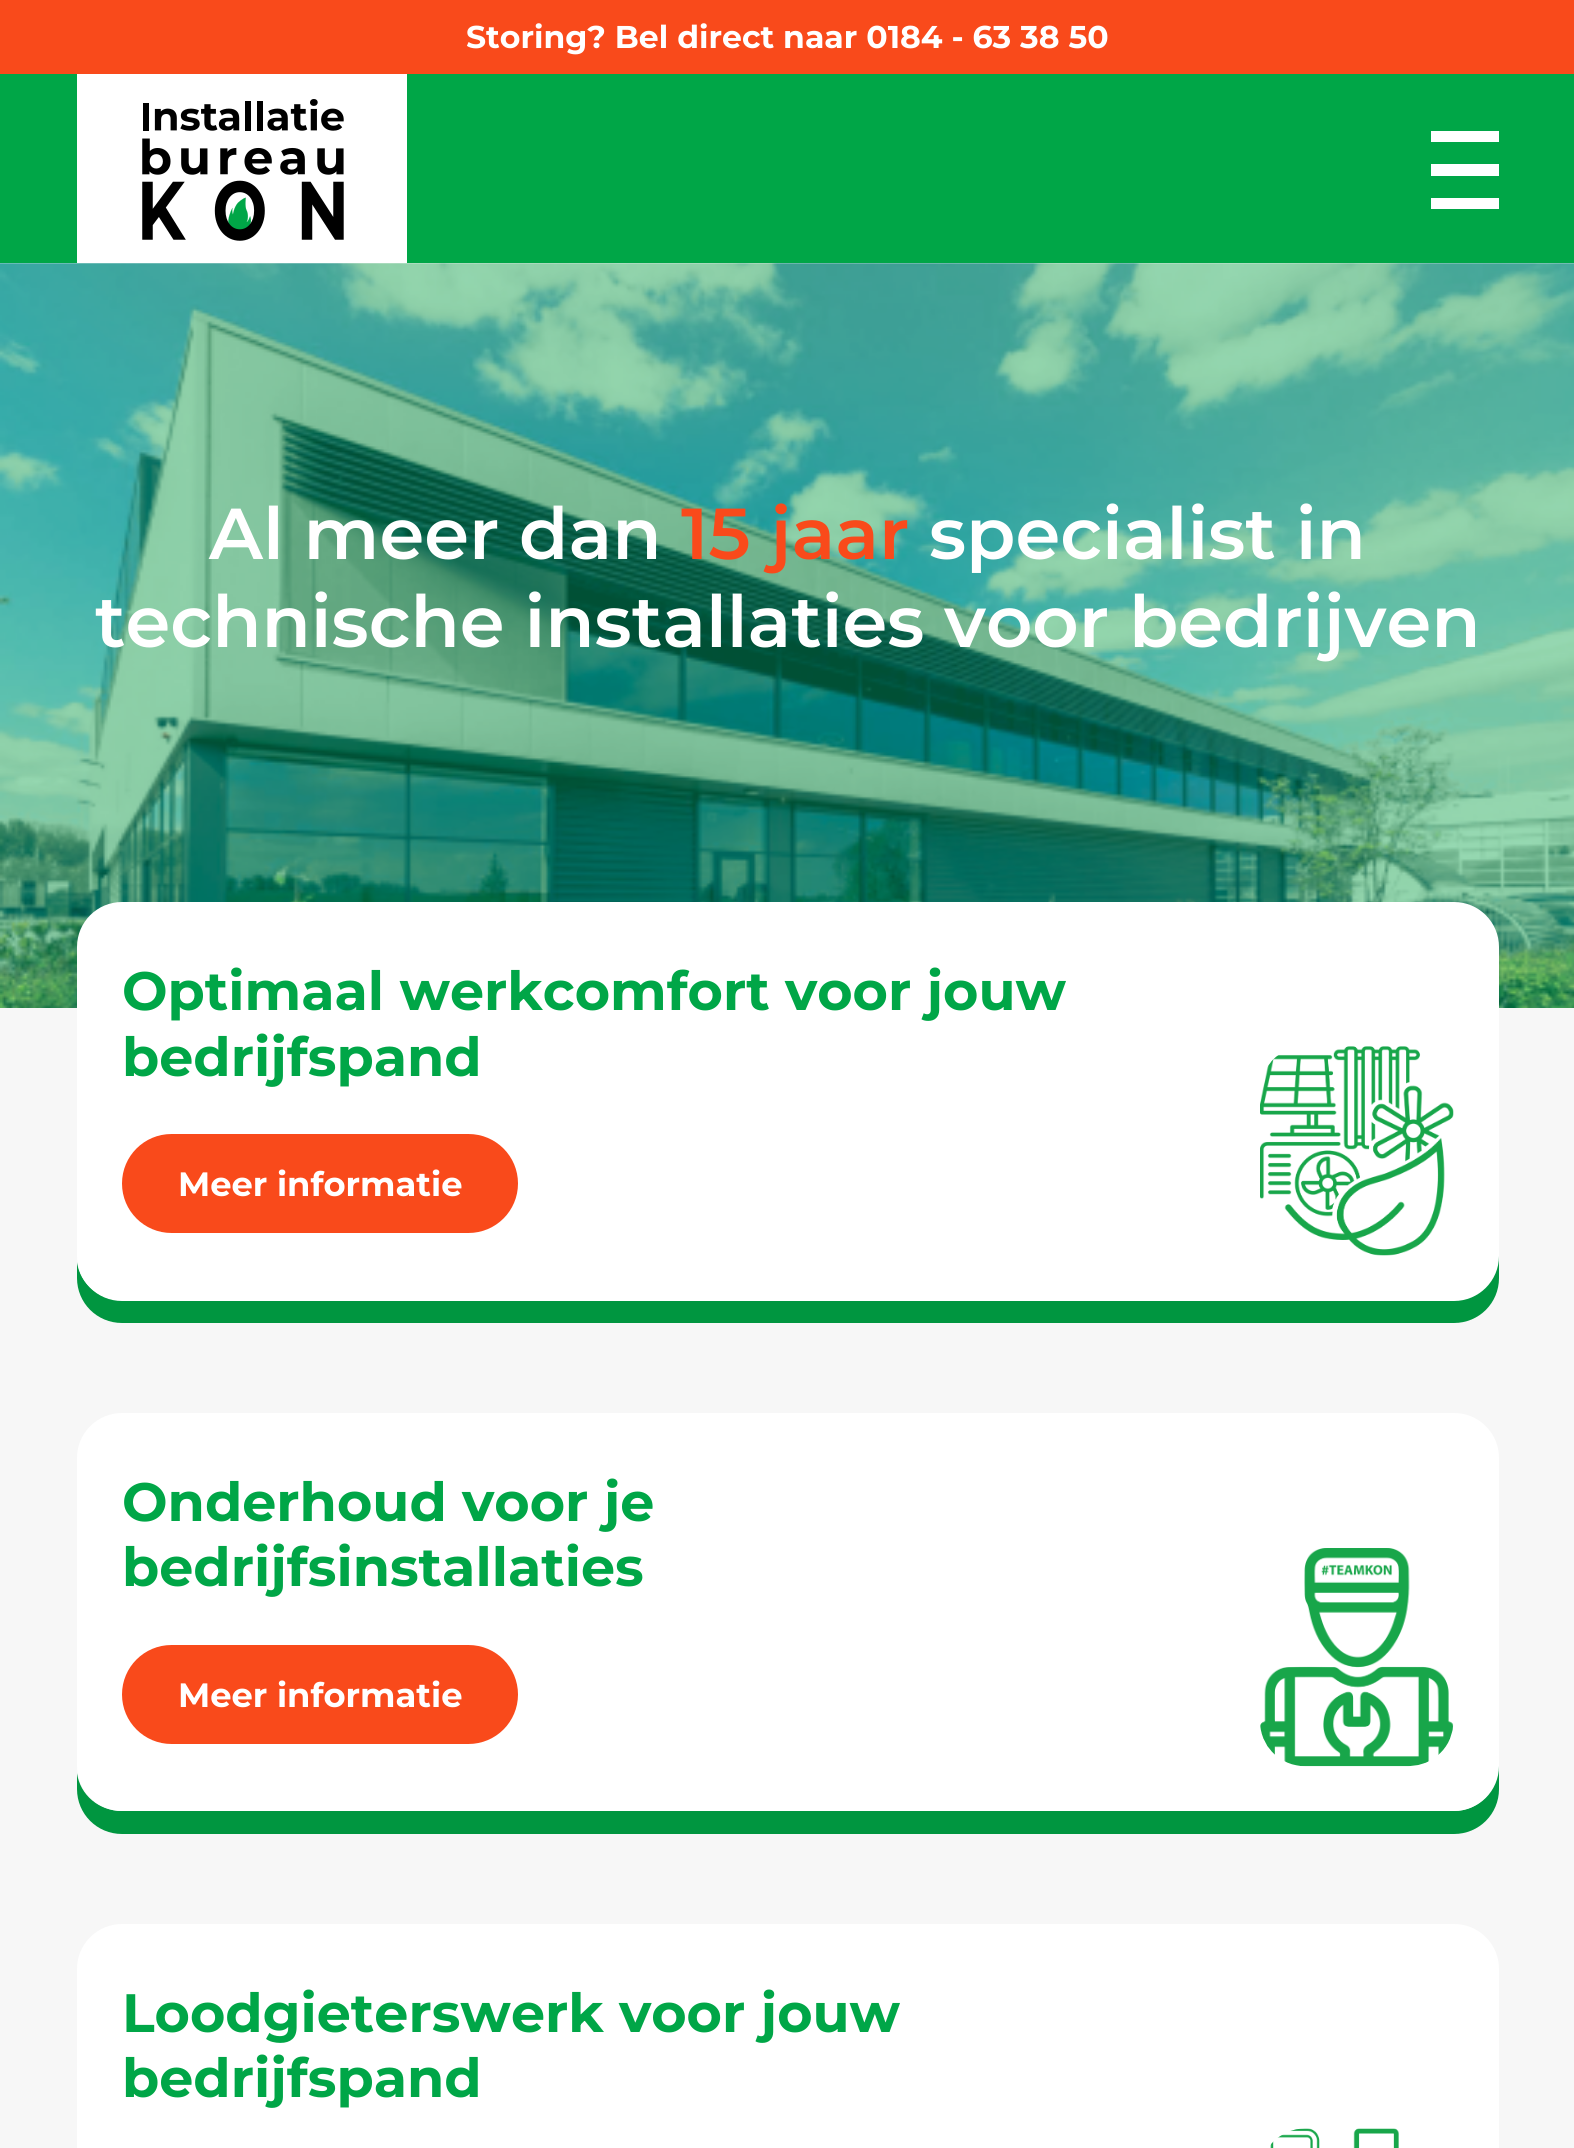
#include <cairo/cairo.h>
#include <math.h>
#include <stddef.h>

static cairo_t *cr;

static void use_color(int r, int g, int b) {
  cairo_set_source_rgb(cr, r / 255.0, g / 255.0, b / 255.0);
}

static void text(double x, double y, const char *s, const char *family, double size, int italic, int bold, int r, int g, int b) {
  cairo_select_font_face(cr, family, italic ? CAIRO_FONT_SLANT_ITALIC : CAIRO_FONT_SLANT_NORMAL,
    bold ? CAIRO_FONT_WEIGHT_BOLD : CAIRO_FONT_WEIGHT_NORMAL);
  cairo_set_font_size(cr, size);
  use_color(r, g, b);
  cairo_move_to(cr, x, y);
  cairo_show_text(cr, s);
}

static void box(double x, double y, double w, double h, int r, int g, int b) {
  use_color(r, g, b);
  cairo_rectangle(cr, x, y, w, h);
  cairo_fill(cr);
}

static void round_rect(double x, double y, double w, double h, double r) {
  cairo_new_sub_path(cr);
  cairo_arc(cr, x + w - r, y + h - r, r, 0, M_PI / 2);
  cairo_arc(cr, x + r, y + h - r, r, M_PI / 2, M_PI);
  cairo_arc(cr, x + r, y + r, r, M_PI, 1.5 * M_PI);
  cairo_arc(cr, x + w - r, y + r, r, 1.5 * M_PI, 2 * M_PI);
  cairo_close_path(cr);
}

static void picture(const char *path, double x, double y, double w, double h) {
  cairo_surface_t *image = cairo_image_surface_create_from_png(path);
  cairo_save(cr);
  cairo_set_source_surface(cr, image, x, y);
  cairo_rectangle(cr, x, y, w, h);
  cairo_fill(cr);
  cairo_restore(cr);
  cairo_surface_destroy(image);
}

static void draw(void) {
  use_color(247, 247, 247);
  cairo_paint(cr);
  box(0, 0, 1574, 74, 249, 74, 27);
  box(0, 74, 1574, 189, 0, 166, 71);
  box(77, 74, 330, 189, 255, 255, 255);
  picture("img_01.png", 142, 99, 202, 142);
  box(1431, 131, 68, 11, 255, 255, 255);
  box(1431, 164, 68, 12, 255, 255, 255);
  box(1431, 198, 68, 11, 255, 255, 255);
  picture("img_02.png", 0, 263, 1574, 745);
  use_color(0, 150, 64);
  cairo_new_path(cr);
  cairo_move_to(cr, 77, 1262);
  cairo_line_to(cr, 77, 1278);
  cairo_curve_to(cr, 77, 1303, 97, 1323, 122, 1323);
  cairo_line_to(cr, 1454, 1323);
  cairo_curve_to(cr, 1479, 1323, 1499, 1303, 1499, 1278);
  cairo_line_to(cr, 1499, 970);
  cairo_line_to(cr, 1498, 963);
  cairo_line_to(cr, 1498, 1256);
  cairo_curve_to(cr, 1498, 1280, 1478, 1300, 1454, 1300);
  cairo_line_to(cr, 122, 1300);
  cairo_curve_to(cr, 99, 1300, 80, 1284, 77, 1262);
  cairo_close_path(cr);
  cairo_fill(cr);
  use_color(255, 255, 255);
  round_rect(77, 902, 1422, 399, 45);
  cairo_fill(cr);
  use_color(249, 74, 27);
  round_rect(122, 1134, 396, 99, 49.5);
  cairo_fill(cr);
  picture("img_03.png", 1260, 1046, 194, 210);
  use_color(0, 150, 64);
  cairo_new_path(cr);
  cairo_move_to(cr, 77, 1773);
  cairo_line_to(cr, 77, 1789);
  cairo_curve_to(cr, 77, 1814, 97, 1834, 122, 1834);
  cairo_line_to(cr, 1454, 1834);
  cairo_curve_to(cr, 1479, 1834, 1499, 1814, 1499, 1789);
  cairo_line_to(cr, 1499, 1481);
  cairo_line_to(cr, 1498, 1474);
  cairo_line_to(cr, 1498, 1766);
  cairo_curve_to(cr, 1498, 1791, 1478, 1811, 1454, 1811);
  cairo_line_to(cr, 122, 1811);
  cairo_curve_to(cr, 99, 1811, 80, 1795, 77, 1773);
  cairo_close_path(cr);
  cairo_fill(cr);
  use_color(255, 255, 255);
  round_rect(77, 1413, 1422, 398, 45);
  cairo_fill(cr);
  picture("img_04.png", 1260, 1548, 194, 219);
  use_color(249, 74, 27);
  round_rect(122, 1645, 396, 99, 49.5);
  cairo_fill(cr);
  use_color(255, 255, 255);
  round_rect(77, 1924, 1422, 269, 45);
  cairo_fill(cr);
  picture("img_05.png", 1270, 2128, 129, 20);
  text(466, 48, "Storing? Bel direct naar 0184 - 63 38 50", "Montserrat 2 Thin", 31.5, 0, 0, 255, 255, 255);
  text(209, 559, "Al meer dan", "Montserrat Thin", 72, 0, 0, 255, 255, 255);
  text(681, 559, "15 jaar", "Montserrat Thin", 72, 0, 0, 249, 74, 27);
  text(929, 559, "specialist in", "Montserrat Thin", 72, 0, 0, 255, 255, 255);
  text(95, 647, "technische installaties voor bedrijven", "Montserrat Thin", 72, 0, 0, 255, 255, 255);
  text(122, 1010, "Optimaal werkcomfort voor jouw", "Montserrat 2 Thin", 54, 0, 0, 0, 166, 71);
  text(122, 1076, "bedrijfspand", "Montserrat 2 Thin", 54, 0, 0, 0, 166, 71);
  text(178, 1196, "Meer informatie", "Montserrat 2 Thin", 33.75, 0, 0, 255, 255, 255);
  text(122, 1521, "Onderhoud voor je", "Montserrat 2 Thin", 54, 0, 0, 0, 166, 71);
  text(122, 1586, "bedrijfsinstallaties", "Montserrat 2 Thin", 54, 0, 0, 0, 166, 71);
  text(178, 1707, "Meer informatie", "Montserrat 2 Thin", 33.75, 0, 0, 255, 255, 255);
  text(122, 2032, "Loodgieterswerk voor jouw", "Montserrat 2 Thin", 54, 0, 0, 0, 166, 71);
  text(122, 2097, "bedrijfspand", "Montserrat 2 Thin", 54, 0, 0, 0, 166, 71);
}

int main(void) {
  cairo_surface_t *surface = cairo_image_surface_create(CAIRO_FORMAT_RGB24, 1574, 2148);
  cr = cairo_create(surface);
  cairo_font_options_t *options = cairo_font_options_create();
  cairo_font_options_set_hint_metrics(options, CAIRO_HINT_METRICS_OFF);
  cairo_font_options_set_hint_style(options, CAIRO_HINT_STYLE_NONE);
  cairo_set_font_options(cr, options);
  cairo_set_miter_limit(cr, 4);
  draw();
  cairo_surface_write_to_png(surface, "out.png");
  cairo_font_options_destroy(options);
  cairo_destroy(cr);
  cairo_surface_destroy(surface);
  return 0;
}
